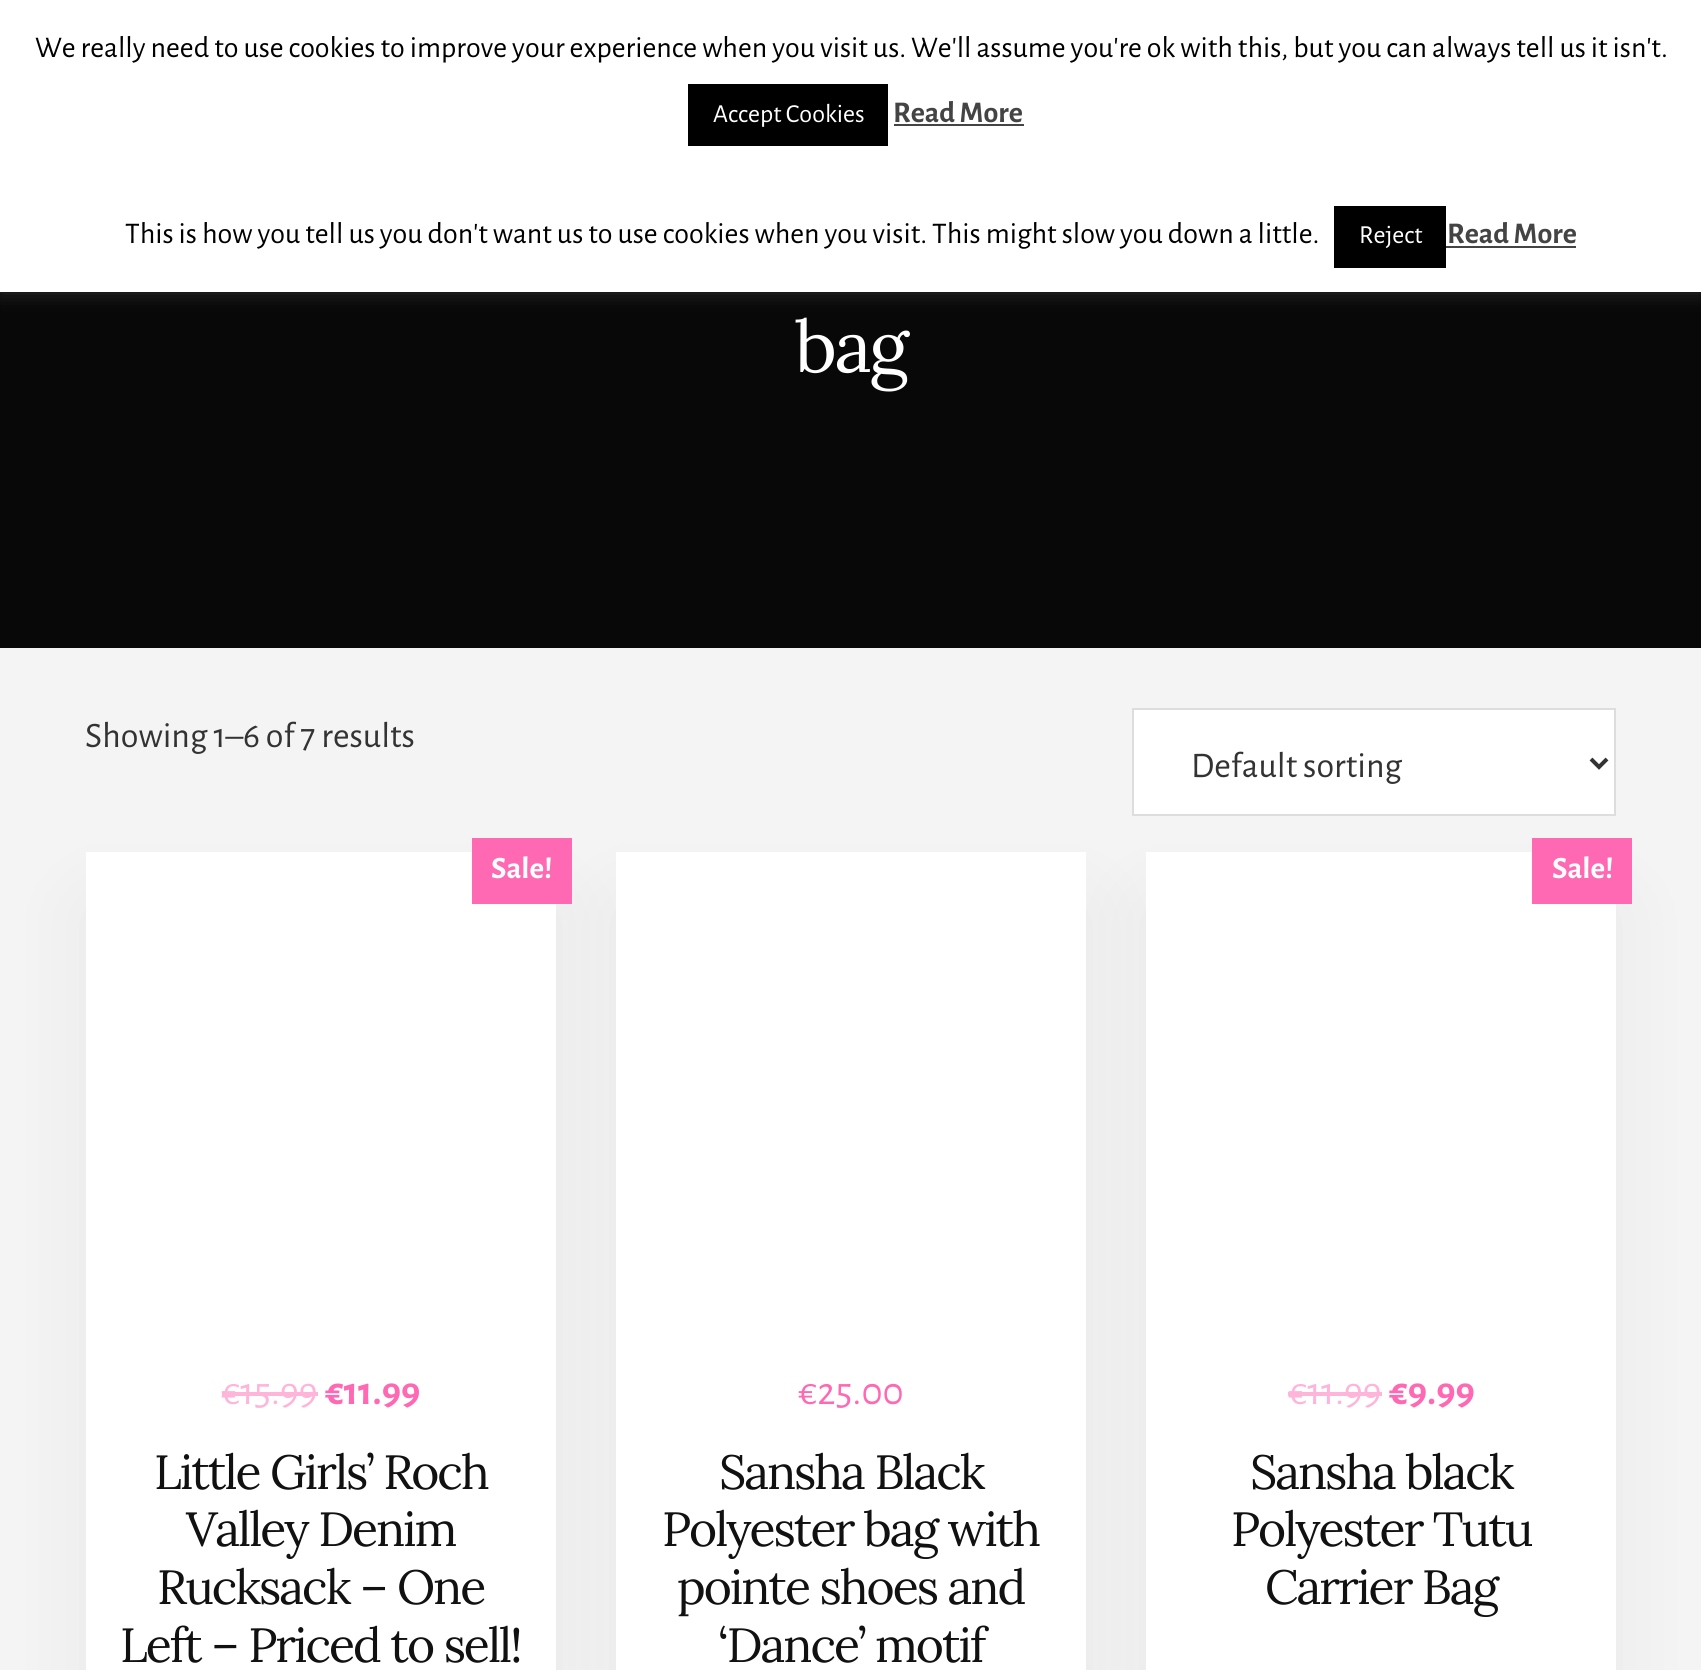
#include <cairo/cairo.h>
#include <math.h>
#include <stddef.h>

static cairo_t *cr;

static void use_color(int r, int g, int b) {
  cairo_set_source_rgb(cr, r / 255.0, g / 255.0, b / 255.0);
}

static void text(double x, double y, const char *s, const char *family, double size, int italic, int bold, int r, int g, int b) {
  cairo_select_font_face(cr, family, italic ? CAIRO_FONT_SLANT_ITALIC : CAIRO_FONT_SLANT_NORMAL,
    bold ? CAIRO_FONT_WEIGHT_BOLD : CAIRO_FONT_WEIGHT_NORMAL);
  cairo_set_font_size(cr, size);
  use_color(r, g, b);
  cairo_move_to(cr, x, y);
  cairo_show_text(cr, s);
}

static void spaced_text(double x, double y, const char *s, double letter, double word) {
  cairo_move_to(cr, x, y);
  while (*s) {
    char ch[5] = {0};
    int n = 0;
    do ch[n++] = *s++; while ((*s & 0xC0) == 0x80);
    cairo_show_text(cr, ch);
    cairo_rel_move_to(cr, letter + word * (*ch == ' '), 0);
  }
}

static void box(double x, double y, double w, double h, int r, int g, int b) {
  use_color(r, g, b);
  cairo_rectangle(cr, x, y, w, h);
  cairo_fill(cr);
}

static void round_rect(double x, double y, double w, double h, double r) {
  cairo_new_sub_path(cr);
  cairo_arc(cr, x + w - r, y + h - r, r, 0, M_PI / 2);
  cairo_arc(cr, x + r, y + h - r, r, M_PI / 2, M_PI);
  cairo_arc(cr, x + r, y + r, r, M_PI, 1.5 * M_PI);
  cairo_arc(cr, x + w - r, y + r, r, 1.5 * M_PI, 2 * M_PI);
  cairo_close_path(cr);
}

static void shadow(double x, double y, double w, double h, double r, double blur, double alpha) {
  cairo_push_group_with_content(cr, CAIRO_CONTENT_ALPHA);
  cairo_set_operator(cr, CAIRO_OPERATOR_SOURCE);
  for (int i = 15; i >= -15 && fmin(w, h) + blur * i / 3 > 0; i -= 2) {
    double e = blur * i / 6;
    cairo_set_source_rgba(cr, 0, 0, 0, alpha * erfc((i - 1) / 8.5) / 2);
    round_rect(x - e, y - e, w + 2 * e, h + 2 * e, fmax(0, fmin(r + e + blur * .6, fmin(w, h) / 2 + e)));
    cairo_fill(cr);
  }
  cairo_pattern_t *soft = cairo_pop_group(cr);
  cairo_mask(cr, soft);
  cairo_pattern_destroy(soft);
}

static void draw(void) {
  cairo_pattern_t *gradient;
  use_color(244, 244, 244);
  cairo_paint(cr);
  gradient = cairo_pattern_create_linear(851, 648, 851, 0);
  cairo_pattern_add_color_stop_rgba(gradient, 0.5, 0.031, 0.031, 0.031, 1);
  cairo_pattern_add_color_stop_rgba(gradient, 1, 0.012, 0.012, 0.012, 1);
  cairo_set_source(cr, gradient);
  cairo_pattern_destroy(gradient);
  cairo_rectangle(cr, 0, 292, 1701, 356);
  cairo_fill(cr);
  use_color(172, 171, 171);
  shadow(0, -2, 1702, 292, 0, 10, 0.3);
  box(0, 0, 1701, 292, 255, 255, 255);
  box(688, 84, 200, 62, 0, 0, 0);
  box(894, 124, 130, 2, 68, 68, 68);
  box(1334, 206, 112, 62, 0, 0, 0);
  box(1446, 246, 130, 2, 68, 68, 68);
  use_color(255, 255, 255);
  cairo_rectangle(cr, 1133, 709, 482, 106);
  cairo_fill_preserve(cr);
  use_color(221, 221, 221);
  cairo_stroke(cr);
  cairo_new_path(cr);
  cairo_move_to(cr, 1591, 759);
  cairo_line_to(cr, 1599, 767);
  cairo_line_to(cr, 1607, 759);
  use_color(51, 51, 51);
  cairo_set_line_width(cr, 4);
  cairo_stroke(cr);
  use_color(0, 0, 0);
  shadow(86, 904, 470, 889, 0, 41, 0.05);
  box(86, 852, 470, 818, 255, 255, 255);
  use_color(0, 0, 0);
  shadow(616, 904, 470, 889, 0, 41, 0.05);
  box(472, 838, 100, 66, 255, 105, 180);
  box(222, 1392, 96, 4, 255, 180, 218);
  box(616, 852, 470, 818, 255, 255, 255);
  use_color(0, 0, 0);
  shadow(1146, 904, 470, 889, 0, 41, 0.05);
  box(1146, 852, 470, 818, 255, 255, 255);
  box(1532, 838, 100, 66, 255, 105, 180);
  box(1288, 1392, 94, 4, 255, 180, 218);
  text(35, 57, "We really need to use cookies to improve your experience when you visit us. We'll assume you're ok with this, but you can always tell us it isn't.", "Alegreya Sans", 30, 0, 0, 0, 0, 0);
  text(713, 122, "Accept Cookies", "Alegreya Sans", 26, 0, 0, 255, 255, 255);
  text(893, 122, "Read More", "Alegreya Sans", 30, 0, 1, 68, 68, 68);
  text(125, 243, "This is how you tell us you don't want us to use cookies when you visit. This might slow you down a little.", "Alegreya Sans", 30, 0, 0, 0, 0, 0);
  text(1359, 243, "Reject", "Alegreya Sans", 26, 0, 0, 255, 255, 255);
  text(1447, 243, "Read More", "Alegreya Sans", 30, 0, 1, 68, 68, 68);
  cairo_select_font_face(cr, "Lora", CAIRO_FONT_SLANT_NORMAL, CAIRO_FONT_WEIGHT_NORMAL);
  cairo_set_font_size(cr, 72);
  use_color(255, 255, 255);
  spaced_text(795, 372, "bag", -2.5, 0);
  text(85, 747, "Showing 1–6 of 7 results", "Alegreya Sans", 36, 0, 0, 51, 51, 51);
  text(1191, 777, "Default sorting", "Alegreya Sans", 36, 0, 0, 51, 51, 51);
  text(491, 878, "Sale!", "Alegreya Sans", 31, 0, 1, 255, 255, 255);
  text(221, 1404, "€15.99", "Alegreya Sans", 40, 0, 0, 255, 180, 218);
  text(325, 1404, "€11.99", "Alegreya Sans", 40, 0, 1, 255, 105, 180);
  cairo_select_font_face(cr, "Lora", CAIRO_FONT_SLANT_NORMAL, CAIRO_FONT_WEIGHT_NORMAL);
  cairo_set_font_size(cr, 48);
  use_color(17, 17, 17);
  spaced_text(154, 1489, "Little Girls’ Roch", -2, 0);
  spaced_text(186, 1546, "Valley Denim", -2, 0);
  spaced_text(157, 1604, "Rucksack – One", -2, 0);
  spaced_text(120, 1662, "Left – Priced to sell!", -2, 0);
  text(798, 1404, "€25.00", "Alegreya Sans", 40, 0, 0, 255, 105, 180);
  cairo_select_font_face(cr, "Lora", CAIRO_FONT_SLANT_NORMAL, CAIRO_FONT_WEIGHT_NORMAL);
  cairo_set_font_size(cr, 48);
  use_color(17, 17, 17);
  spaced_text(719, 1489, "Sansha Black", -2, 0);
  spaced_text(662, 1546, "Polyester bag with", -2, 0);
  spaced_text(677, 1604, "pointe shoes and", -2, 0);
  spaced_text(718, 1662, "‘Dance’ motif", -2, 0);
  text(1552, 878, "Sale!", "Alegreya Sans", 31, 0, 1, 255, 255, 255);
  text(1288, 1404, "€11.99", "Alegreya Sans", 40, 0, 0, 255, 180, 218);
  text(1389, 1404, "€9.99", "Alegreya Sans", 40, 0, 1, 255, 105, 180);
  cairo_select_font_face(cr, "Lora", CAIRO_FONT_SLANT_NORMAL, CAIRO_FONT_WEIGHT_NORMAL);
  cairo_set_font_size(cr, 48);
  use_color(17, 17, 17);
  spaced_text(1250, 1489, "Sansha black", -2, 0);
  spaced_text(1231, 1546, "Polyester Tutu", -2, 0);
  spaced_text(1265, 1604, "Carrier Bag", -2, 0);
}

int main(void) {
  cairo_surface_t *surface = cairo_image_surface_create(CAIRO_FORMAT_RGB24, 1701, 1670);
  cr = cairo_create(surface);
  cairo_font_options_t *options = cairo_font_options_create();
  cairo_font_options_set_hint_metrics(options, CAIRO_HINT_METRICS_OFF);
  cairo_font_options_set_hint_style(options, CAIRO_HINT_STYLE_NONE);
  cairo_set_font_options(cr, options);
  cairo_set_miter_limit(cr, 4);
  draw();
  cairo_surface_write_to_png(surface, "out.png");
  cairo_font_options_destroy(options);
  cairo_destroy(cr);
  cairo_surface_destroy(surface);
  return 0;
}
